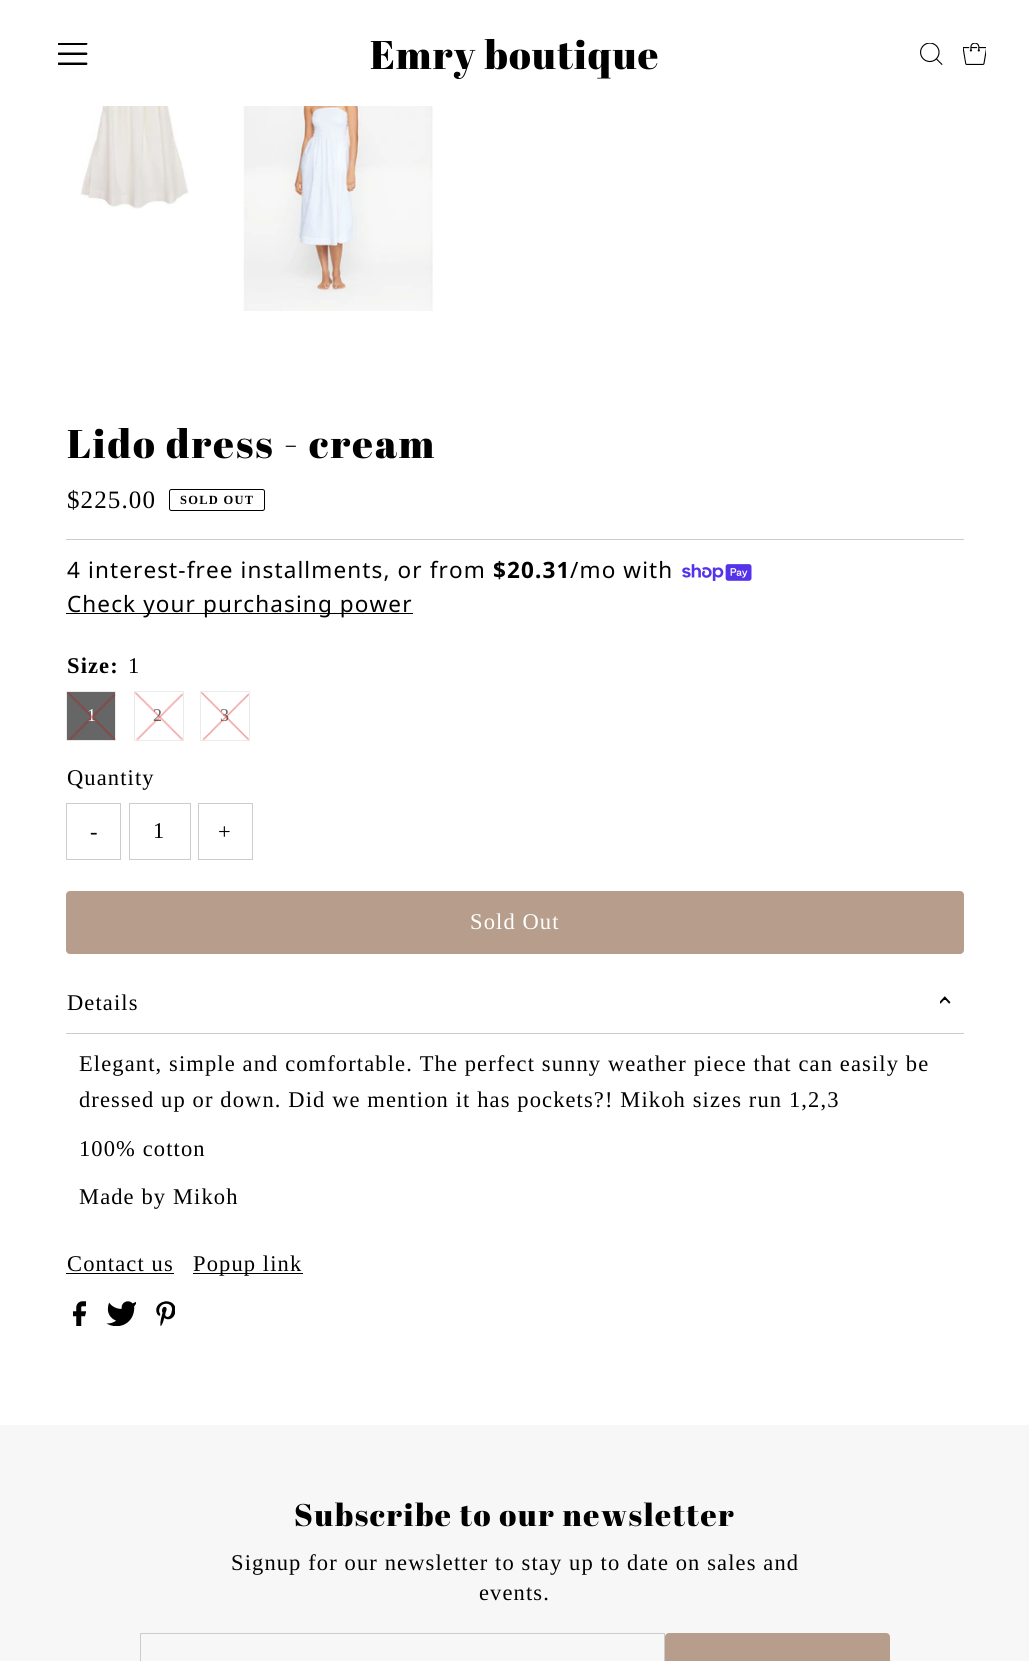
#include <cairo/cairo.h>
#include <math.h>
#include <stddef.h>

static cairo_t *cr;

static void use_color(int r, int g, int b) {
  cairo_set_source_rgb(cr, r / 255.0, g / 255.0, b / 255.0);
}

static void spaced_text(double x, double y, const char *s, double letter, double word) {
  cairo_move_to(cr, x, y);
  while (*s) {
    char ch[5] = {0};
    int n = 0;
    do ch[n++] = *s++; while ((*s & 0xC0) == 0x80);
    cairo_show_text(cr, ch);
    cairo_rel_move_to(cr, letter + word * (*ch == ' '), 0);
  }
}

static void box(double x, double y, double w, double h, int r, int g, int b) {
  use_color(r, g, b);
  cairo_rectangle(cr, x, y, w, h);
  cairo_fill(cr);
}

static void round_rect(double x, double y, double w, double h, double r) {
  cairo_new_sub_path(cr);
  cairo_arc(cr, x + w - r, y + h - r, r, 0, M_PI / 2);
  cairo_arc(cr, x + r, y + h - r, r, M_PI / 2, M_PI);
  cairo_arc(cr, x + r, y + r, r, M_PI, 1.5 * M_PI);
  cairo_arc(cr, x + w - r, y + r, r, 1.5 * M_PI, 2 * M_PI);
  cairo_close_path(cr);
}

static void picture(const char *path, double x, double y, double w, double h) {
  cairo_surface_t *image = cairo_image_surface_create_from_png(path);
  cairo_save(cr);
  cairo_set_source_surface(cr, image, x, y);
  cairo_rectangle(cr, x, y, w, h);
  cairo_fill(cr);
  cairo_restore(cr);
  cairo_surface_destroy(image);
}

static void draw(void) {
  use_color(255, 255, 255);
  cairo_paint(cr);
  picture("img_01.png", 58, 43, 30, 22);
  picture("img_02.png", 920, 43, 23, 22);
  picture("img_03.png", 963, 43, 23, 22);
  picture("img_04.png", 80, 106, 109, 103);
  picture("img_05.png", 243, 106, 190, 205);
  box(66, 539, 898, 1, 204, 204, 204);
  round_rect(169.5, 489.5, 95, 21, 2);
  use_color(0, 0, 0);
  cairo_set_line_width(cr, 1);
  cairo_stroke(cr);
  picture("img_06.png", 682, 564, 70, 17);
  box(66, 613, 347, 1, 0, 0, 0);
  use_color(102, 102, 102);
  cairo_rectangle(cr, 66.5, 691.5, 49, 49);
  cairo_fill_preserve(cr);
  use_color(235, 235, 235);
  cairo_stroke(cr);
  cairo_rectangle(cr, 134.5, 691.5, 49, 49);
  cairo_stroke(cr);
  cairo_rectangle(cr, 200.5, 691.5, 49, 49);
  cairo_stroke(cr);
  cairo_rectangle(cr, 66.5, 803.5, 54, 56);
  use_color(204, 204, 204);
  cairo_stroke(cr);
  cairo_rectangle(cr, 129.5, 803.5, 61, 56);
  cairo_stroke(cr);
  cairo_rectangle(cr, 198.5, 803.5, 54, 56);
  cairo_stroke(cr);
  use_color(183, 158, 140);
  round_rect(66, 891, 898, 63, 4);
  cairo_fill(cr);
  box(66, 1033, 898, 1, 204, 204, 204);
  picture("img_10.png", 940, 996, 11, 8);
  box(66, 1273, 108, 1, 0, 0, 0);
  box(193, 1273, 110, 1, 0, 0, 0);
  picture("img_11.png", 73, 1301, 13, 25);
  picture("img_12.png", 106, 1301, 30, 25);
  picture("img_13.png", 156, 1301, 19, 25);
  box(0, 1425, 1029, 236, 247, 247, 247);
  cairo_rectangle(cr, 140.5, 1633.5, 524, 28);
  use_color(204, 204, 204);
  cairo_stroke(cr);
  use_color(183, 158, 140);
  round_rect(665, 1633, 225, 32, 4);
  cairo_fill(cr);
  cairo_select_font_face(cr, "Abril Fatface", CAIRO_FONT_SLANT_NORMAL, CAIRO_FONT_WEIGHT_NORMAL);
  cairo_set_font_size(cr, 40);
  use_color(0, 0, 0);
  spaced_text(370, 69, "Emry boutique", 1.12, 0);
  spaced_text(67, 458, "Lido dress - cream", 2, 0);
  cairo_select_font_face(cr, "Liberation Serif", CAIRO_FONT_SLANT_NORMAL, CAIRO_FONT_WEIGHT_NORMAL);
  cairo_set_font_size(cr, 25);
  spaced_text(67, 508, "$225.00", 1.12, 0);
  cairo_select_font_face(cr, "Liberation Serif", CAIRO_FONT_SLANT_NORMAL, CAIRO_FONT_WEIGHT_BOLD);
  cairo_set_font_size(cr, 12.5);
  spaced_text(180, 504, "SOLD OUT", 1.25, 0);
  cairo_select_font_face(cr, "Noto Sans", CAIRO_FONT_SLANT_NORMAL, CAIRO_FONT_WEIGHT_NORMAL);
  cairo_set_font_size(cr, 22.5);
  spaced_text(67, 578, "4 interest-free installments, or from", 1.12, 0);
  cairo_select_font_face(cr, "Noto Sans", CAIRO_FONT_SLANT_NORMAL, CAIRO_FONT_WEIGHT_BOLD);
  spaced_text(493, 578, "$20.31", 1.12, 0);
  cairo_select_font_face(cr, "Noto Sans", CAIRO_FONT_SLANT_NORMAL, CAIRO_FONT_WEIGHT_NORMAL);
  spaced_text(570, 578, "/mo with", 1.12, 0);
  spaced_text(67, 612, "Check your purchasing power", 1.12, 0);
  cairo_select_font_face(cr, "Liberation Serif", CAIRO_FONT_SLANT_NORMAL, CAIRO_FONT_WEIGHT_BOLD);
  spaced_text(67, 673, "Size:", 1.12, 0);
  cairo_select_font_face(cr, "Liberation Serif", CAIRO_FONT_SLANT_NORMAL, CAIRO_FONT_WEIGHT_NORMAL);
  spaced_text(128, 673, "1", 1.12, 0);
  cairo_set_font_size(cr, 18);
  use_color(255, 255, 255);
  spaced_text(87, 721, "1", 1.12, 0);
  picture("img_07.png", 67, 692, 49, 49);
  use_color(102, 102, 102);
  spaced_text(153, 721, "2", 1.12, 0);
  picture("img_08.png", 134, 692, 49, 49);
  spaced_text(220, 721, "3", 1.12, 0);
  picture("img_09.png", 201, 692, 48, 49);
  cairo_set_font_size(cr, 22.5);
  use_color(0, 0, 0);
  spaced_text(67, 785, "Quantity", 1.12, 0);
  spaced_text(90, 839, "-", 1.12, 0);
  spaced_text(153, 838, "1", 1.12, 0);
  spaced_text(218, 839, "+", 1.12, 0);
  use_color(255, 255, 255);
  spaced_text(470, 929, "Sold Out", 1.12, 0);
  use_color(0, 0, 0);
  spaced_text(67, 1010, "Details", 1.12, 0);
  spaced_text(79, 1071, "Elegant, simple and comfortable. The perfect sunny weather piece that can easily be", 1.12, 0);
  spaced_text(79, 1107, "dressed up or down. Did we mention it has pockets?! Mikoh sizes run 1,2,3", 1.12, 0);
  spaced_text(79, 1156, "100% cotton", 1.12, 0);
  spaced_text(79, 1204, "Made by Mikoh", 1.12, 0);
  spaced_text(67, 1271, "Contact us", 1.12, 0);
  spaced_text(193, 1271, "Popup link", 1.12, 0);
  cairo_select_font_face(cr, "Abril Fatface", CAIRO_FONT_SLANT_NORMAL, CAIRO_FONT_WEIGHT_NORMAL);
  cairo_set_font_size(cr, 31.25);
  spaced_text(294, 1526, "Subscribe to our newsletter", 1.55, 0);
  cairo_select_font_face(cr, "Liberation Serif", CAIRO_FONT_SLANT_NORMAL, CAIRO_FONT_WEIGHT_NORMAL);
  cairo_set_font_size(cr, 22.5);
  spaced_text(231, 1570, "Signup for our newsletter to stay up to date on sales and", 1.12, 0);
  spaced_text(479, 1600, "events.", 1.12, 0);
}

int main(void) {
  cairo_surface_t *surface = cairo_image_surface_create(CAIRO_FORMAT_RGB24, 1029, 1661);
  cr = cairo_create(surface);
  cairo_font_options_t *options = cairo_font_options_create();
  cairo_font_options_set_hint_metrics(options, CAIRO_HINT_METRICS_OFF);
  cairo_font_options_set_hint_style(options, CAIRO_HINT_STYLE_NONE);
  cairo_set_font_options(cr, options);
  cairo_set_miter_limit(cr, 4);
  draw();
  cairo_surface_write_to_png(surface, "out.png");
  cairo_font_options_destroy(options);
  cairo_destroy(cr);
  cairo_surface_destroy(surface);
  return 0;
}
